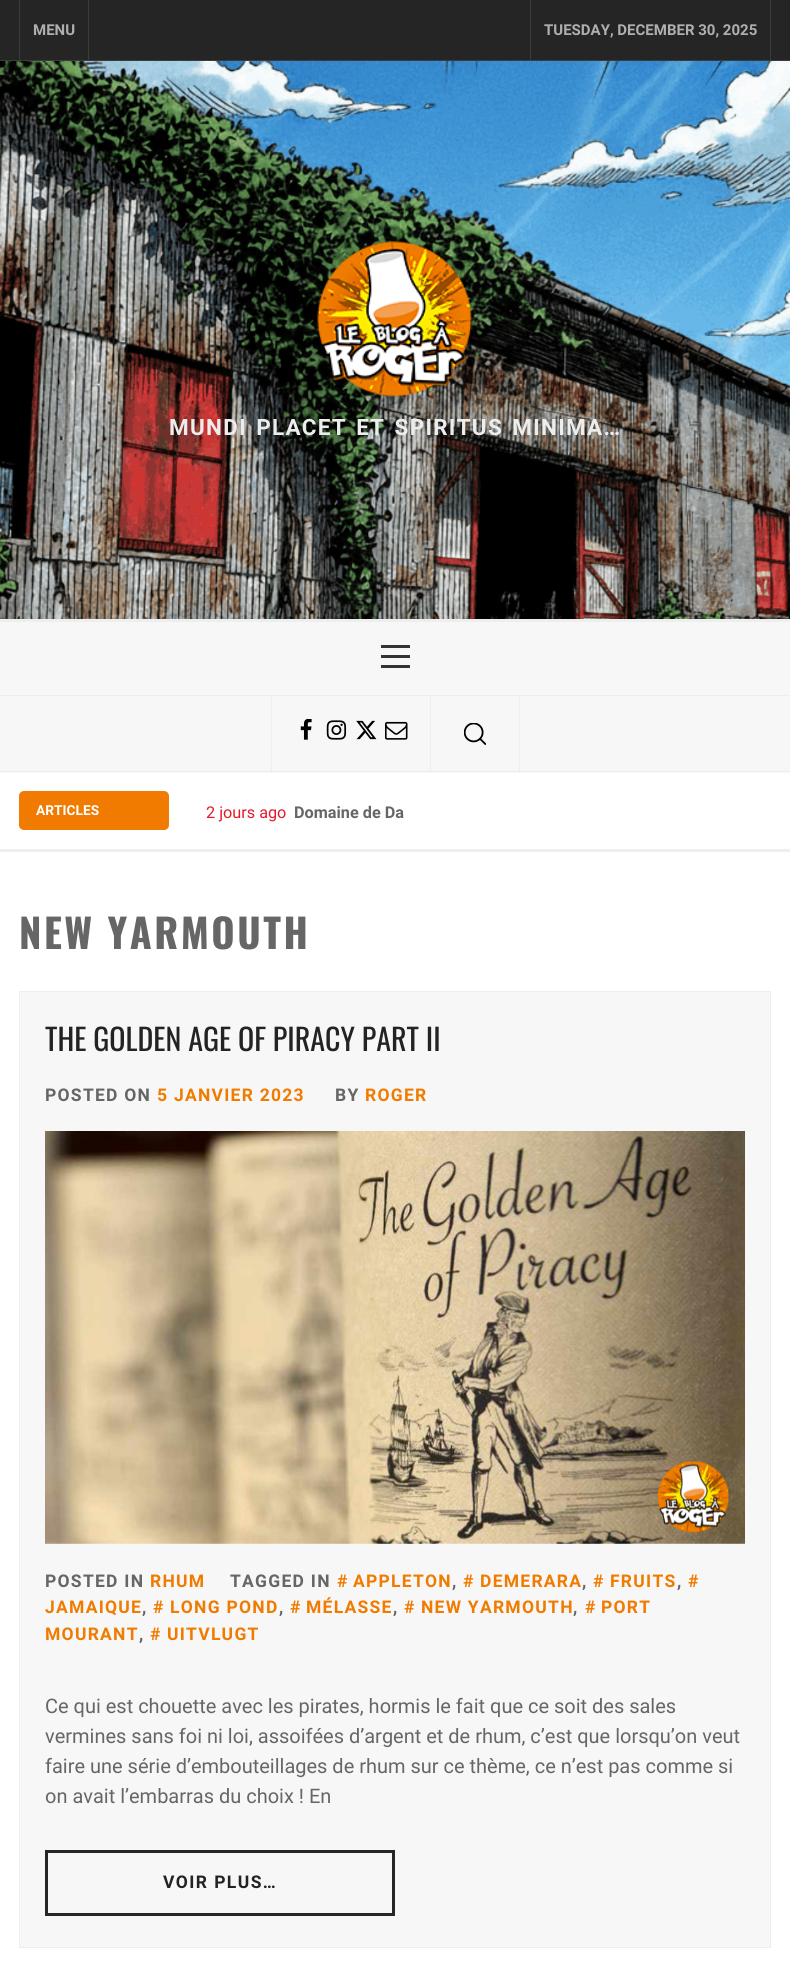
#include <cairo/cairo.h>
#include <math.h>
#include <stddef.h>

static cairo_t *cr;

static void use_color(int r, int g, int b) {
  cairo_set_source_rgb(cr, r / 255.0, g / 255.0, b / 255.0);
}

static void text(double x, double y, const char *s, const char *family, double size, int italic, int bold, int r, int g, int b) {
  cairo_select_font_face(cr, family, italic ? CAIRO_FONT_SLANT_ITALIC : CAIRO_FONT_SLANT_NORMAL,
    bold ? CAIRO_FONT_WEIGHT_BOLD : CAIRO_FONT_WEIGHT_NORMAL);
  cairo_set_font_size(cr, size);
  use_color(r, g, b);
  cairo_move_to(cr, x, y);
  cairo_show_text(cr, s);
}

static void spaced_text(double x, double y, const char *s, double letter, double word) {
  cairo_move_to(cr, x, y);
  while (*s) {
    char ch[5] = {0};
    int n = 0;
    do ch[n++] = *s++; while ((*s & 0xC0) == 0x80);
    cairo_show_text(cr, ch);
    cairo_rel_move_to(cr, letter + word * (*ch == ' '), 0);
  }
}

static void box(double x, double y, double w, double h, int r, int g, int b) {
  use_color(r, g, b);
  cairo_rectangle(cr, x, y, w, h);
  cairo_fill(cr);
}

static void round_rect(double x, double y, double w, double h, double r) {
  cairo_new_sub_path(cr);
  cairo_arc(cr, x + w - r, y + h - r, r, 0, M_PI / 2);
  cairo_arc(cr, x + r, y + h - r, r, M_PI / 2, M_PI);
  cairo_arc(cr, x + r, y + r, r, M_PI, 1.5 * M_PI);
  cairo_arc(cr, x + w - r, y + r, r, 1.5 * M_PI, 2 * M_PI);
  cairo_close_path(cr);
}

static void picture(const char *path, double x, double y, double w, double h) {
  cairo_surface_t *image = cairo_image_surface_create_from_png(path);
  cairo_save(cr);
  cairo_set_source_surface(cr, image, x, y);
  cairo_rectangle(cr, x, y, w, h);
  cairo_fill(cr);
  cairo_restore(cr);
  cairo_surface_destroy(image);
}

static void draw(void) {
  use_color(255, 255, 255);
  cairo_paint(cr);
  picture("img_01.png", 0, 61, 790, 558);
  box(0, 0, 790, 60, 37, 37, 37);
  box(0, 60, 790, 1, 60, 60, 60);
  box(88, 0, 1, 60, 60, 60, 60);
  box(19, 0, 1, 60, 60, 60, 60);
  box(770, 0, 1, 60, 60, 60, 60);
  box(530, 0, 1, 60, 60, 60, 60);
  picture("img_02.png", 317, 241, 155, 156);
  box(0, 622, 790, 151, 247, 247, 247);
  box(0, 619, 790, 3, 238, 238, 238);
  box(0, 771, 790, 1, 238, 238, 238);
  box(0, 695, 790, 1, 238, 238, 238);
  box(381, 655, 29, 3, 51, 51, 51);
  box(381, 645, 29, 3, 51, 51, 51);
  box(381, 665, 29, 3, 51, 51, 51);
  box(271, 696, 1, 75, 238, 238, 238);
  picture("img_03.png", 300, 719, 12, 21);
  picture("img_04.png", 326, 720, 21, 20);
  picture("img_05.png", 356, 720, 21, 20);
  picture("img_06.png", 385, 721, 23, 19);
  box(519, 696, 1, 75, 238, 238, 238);
  box(430, 696, 1, 75, 238, 238, 238);
  picture("img_07.png", 464, 723, 22, 22);
  box(0, 849, 790, 3, 238, 238, 238);
  use_color(240, 123, 0);
  round_rect(19, 791, 150, 39, 5);
  cairo_fill(cr);
  use_color(247, 247, 247);
  cairo_rectangle(cr, 19.5, 991.5, 751, 956);
  cairo_fill_preserve(cr);
  use_color(238, 238, 238);
  cairo_set_line_width(cr, 1);
  cairo_stroke(cr);
  picture("img_08.png", 45, 1131, 700, 413);
  cairo_rectangle(cr, 46.5, 1851.5, 347, 63);
  use_color(38, 38, 38);
  cairo_set_line_width(cr, 3);
  cairo_stroke(cr);
  text(33, 35, "MENU", "Roboto", 15, 0, 1, 175, 175, 175);
  text(544, 35, "TUESDAY, DECEMBER 30, 2025", "Roboto", 15, 0, 1, 175, 175, 175);
  cairo_set_font_size(cr, 22.5);
  use_color(237, 237, 237);
  spaced_text(169, 435, "MUNDI PLACET ET SPIRITUS MINIMA…", 1.25, 2.5);
  text(36, 815, "ARTICLES", "Roboto", 13.75, 0, 1, 255, 255, 255);
  text(206, 818, "2 jours ago", "Roboto", 16.25, 0, 0, 229, 25, 44);
  text(294, 818, "Domaine de Da", "Roboto", 16.25, 0, 1, 102, 102, 102);
  cairo_select_font_face(cr, "Oswald", CAIRO_FONT_SLANT_NORMAL, CAIRO_FONT_WEIGHT_BOLD);
  cairo_set_font_size(cr, 40);
  spaced_text(19, 949, "NEW YARMOUTH", 2.5, 0);
  text(45, 1051, "THE GOLDEN AGE OF PIRACY PART II", "Oswald", 30, 0, 0, 35, 35, 35);
  cairo_select_font_face(cr, "Roboto", CAIRO_FONT_SLANT_NORMAL, CAIRO_FONT_WEIGHT_BOLD);
  cairo_set_font_size(cr, 17.5);
  use_color(102, 102, 102);
  spaced_text(45, 1101, "POSTED ON", 1.25, 0);
  use_color(240, 123, 0);
  spaced_text(157, 1101, "5 JANVIER 2023", 1.25, 0);
  use_color(102, 102, 102);
  spaced_text(335, 1101, "BY", 1.25, 0);
  use_color(240, 123, 0);
  spaced_text(365, 1101, "ROGER", 1.25, 0);
  spaced_text(688, 1587, "#", 1.25, 0);
  spaced_text(45, 1613, "JAMAIQUE", 1.25, 0);
  use_color(102, 102, 102);
  spaced_text(230, 1587, "TAGGED IN", 1.25, 0);
  use_color(240, 123, 0);
  spaced_text(337, 1587, "#", 1.25, 0);
  spaced_text(353, 1587, "APPLETON", 1.25, 0);
  use_color(102, 102, 102);
  spaced_text(452, 1587, ",", 1.25, 0);
  use_color(240, 123, 0);
  spaced_text(463, 1587, "#", 1.25, 0);
  spaced_text(480, 1587, "DEMERARA", 1.25, 0);
  use_color(102, 102, 102);
  spaced_text(582, 1587, ",", 1.25, 0);
  use_color(240, 123, 0);
  spaced_text(593, 1587, "#", 1.25, 0);
  spaced_text(610, 1587, "FRUITS", 1.25, 0);
  use_color(102, 102, 102);
  spaced_text(677, 1587, ",", 1.25, 0);
  use_color(240, 123, 0);
  spaced_text(290, 1613, "#", 1.25, 0);
  spaced_text(306, 1613, "MÉLASSE", 1.25, 0);
  spaced_text(585, 1613, "#", 1.25, 0);
  spaced_text(601, 1613, "PORT", 1.25, 0);
  spaced_text(45, 1640, "MOURANT", 1.25, 0);
  use_color(102, 102, 102);
  spaced_text(142, 1613, ",", 1.25, 0);
  use_color(240, 123, 0);
  spaced_text(153, 1613, "#", 1.25, 0);
  spaced_text(170, 1613, "LONG POND", 1.25, 0);
  use_color(102, 102, 102);
  spaced_text(279, 1613, ",", 1.25, 0);
  spaced_text(393, 1613, ",", 1.25, 0);
  use_color(240, 123, 0);
  spaced_text(404, 1613, "#", 1.25, 0);
  spaced_text(421, 1613, "NEW YARMOUTH", 1.25, 0);
  use_color(102, 102, 102);
  spaced_text(573, 1613, ",", 1.25, 0);
  spaced_text(139, 1640, ",", 1.25, 0);
  use_color(240, 123, 0);
  spaced_text(150, 1640, "#", 1.25, 0);
  spaced_text(167, 1640, "UITVLUGT", 1.25, 0);
  use_color(102, 102, 102);
  spaced_text(45, 1587, "POSTED IN", 1.25, 0);
  use_color(240, 123, 0);
  spaced_text(150, 1587, "RHUM", 1.25, 0);
  text(45, 1713, "Ce qui est chouette avec les pirates, hormis le fait que ce soit des sales", "Roboto", 20, 0, 0, 102, 102, 102);
  text(45, 1743, "vermines sans foi ni loi, assoifées d’argent et de rhum, c’est que lorsqu’on veut", "Roboto", 20, 0, 0, 102, 102, 102);
  text(45, 1773, "faire une série d’embouteillages de rhum sur ce thème, ce n’est pas comme si", "Roboto", 20, 0, 0, 102, 102, 102);
  text(45, 1803, "on avait l’embarras du choix ! En", "Roboto", 20, 0, 0, 102, 102, 102);
  cairo_select_font_face(cr, "Roboto", CAIRO_FONT_SLANT_NORMAL, CAIRO_FONT_WEIGHT_BOLD);
  cairo_set_font_size(cr, 17.5);
  use_color(35, 35, 35);
  spaced_text(163, 1888, "VOIR PLUS…", 1.4, 0);
}

int main(void) {
  cairo_surface_t *surface = cairo_image_surface_create(CAIRO_FORMAT_RGB24, 790, 1962);
  cr = cairo_create(surface);
  cairo_font_options_t *options = cairo_font_options_create();
  cairo_font_options_set_hint_metrics(options, CAIRO_HINT_METRICS_OFF);
  cairo_font_options_set_hint_style(options, CAIRO_HINT_STYLE_NONE);
  cairo_set_font_options(cr, options);
  cairo_set_miter_limit(cr, 4);
  draw();
  cairo_surface_write_to_png(surface, "out.png");
  cairo_font_options_destroy(options);
  cairo_destroy(cr);
  cairo_surface_destroy(surface);
  return 0;
}
